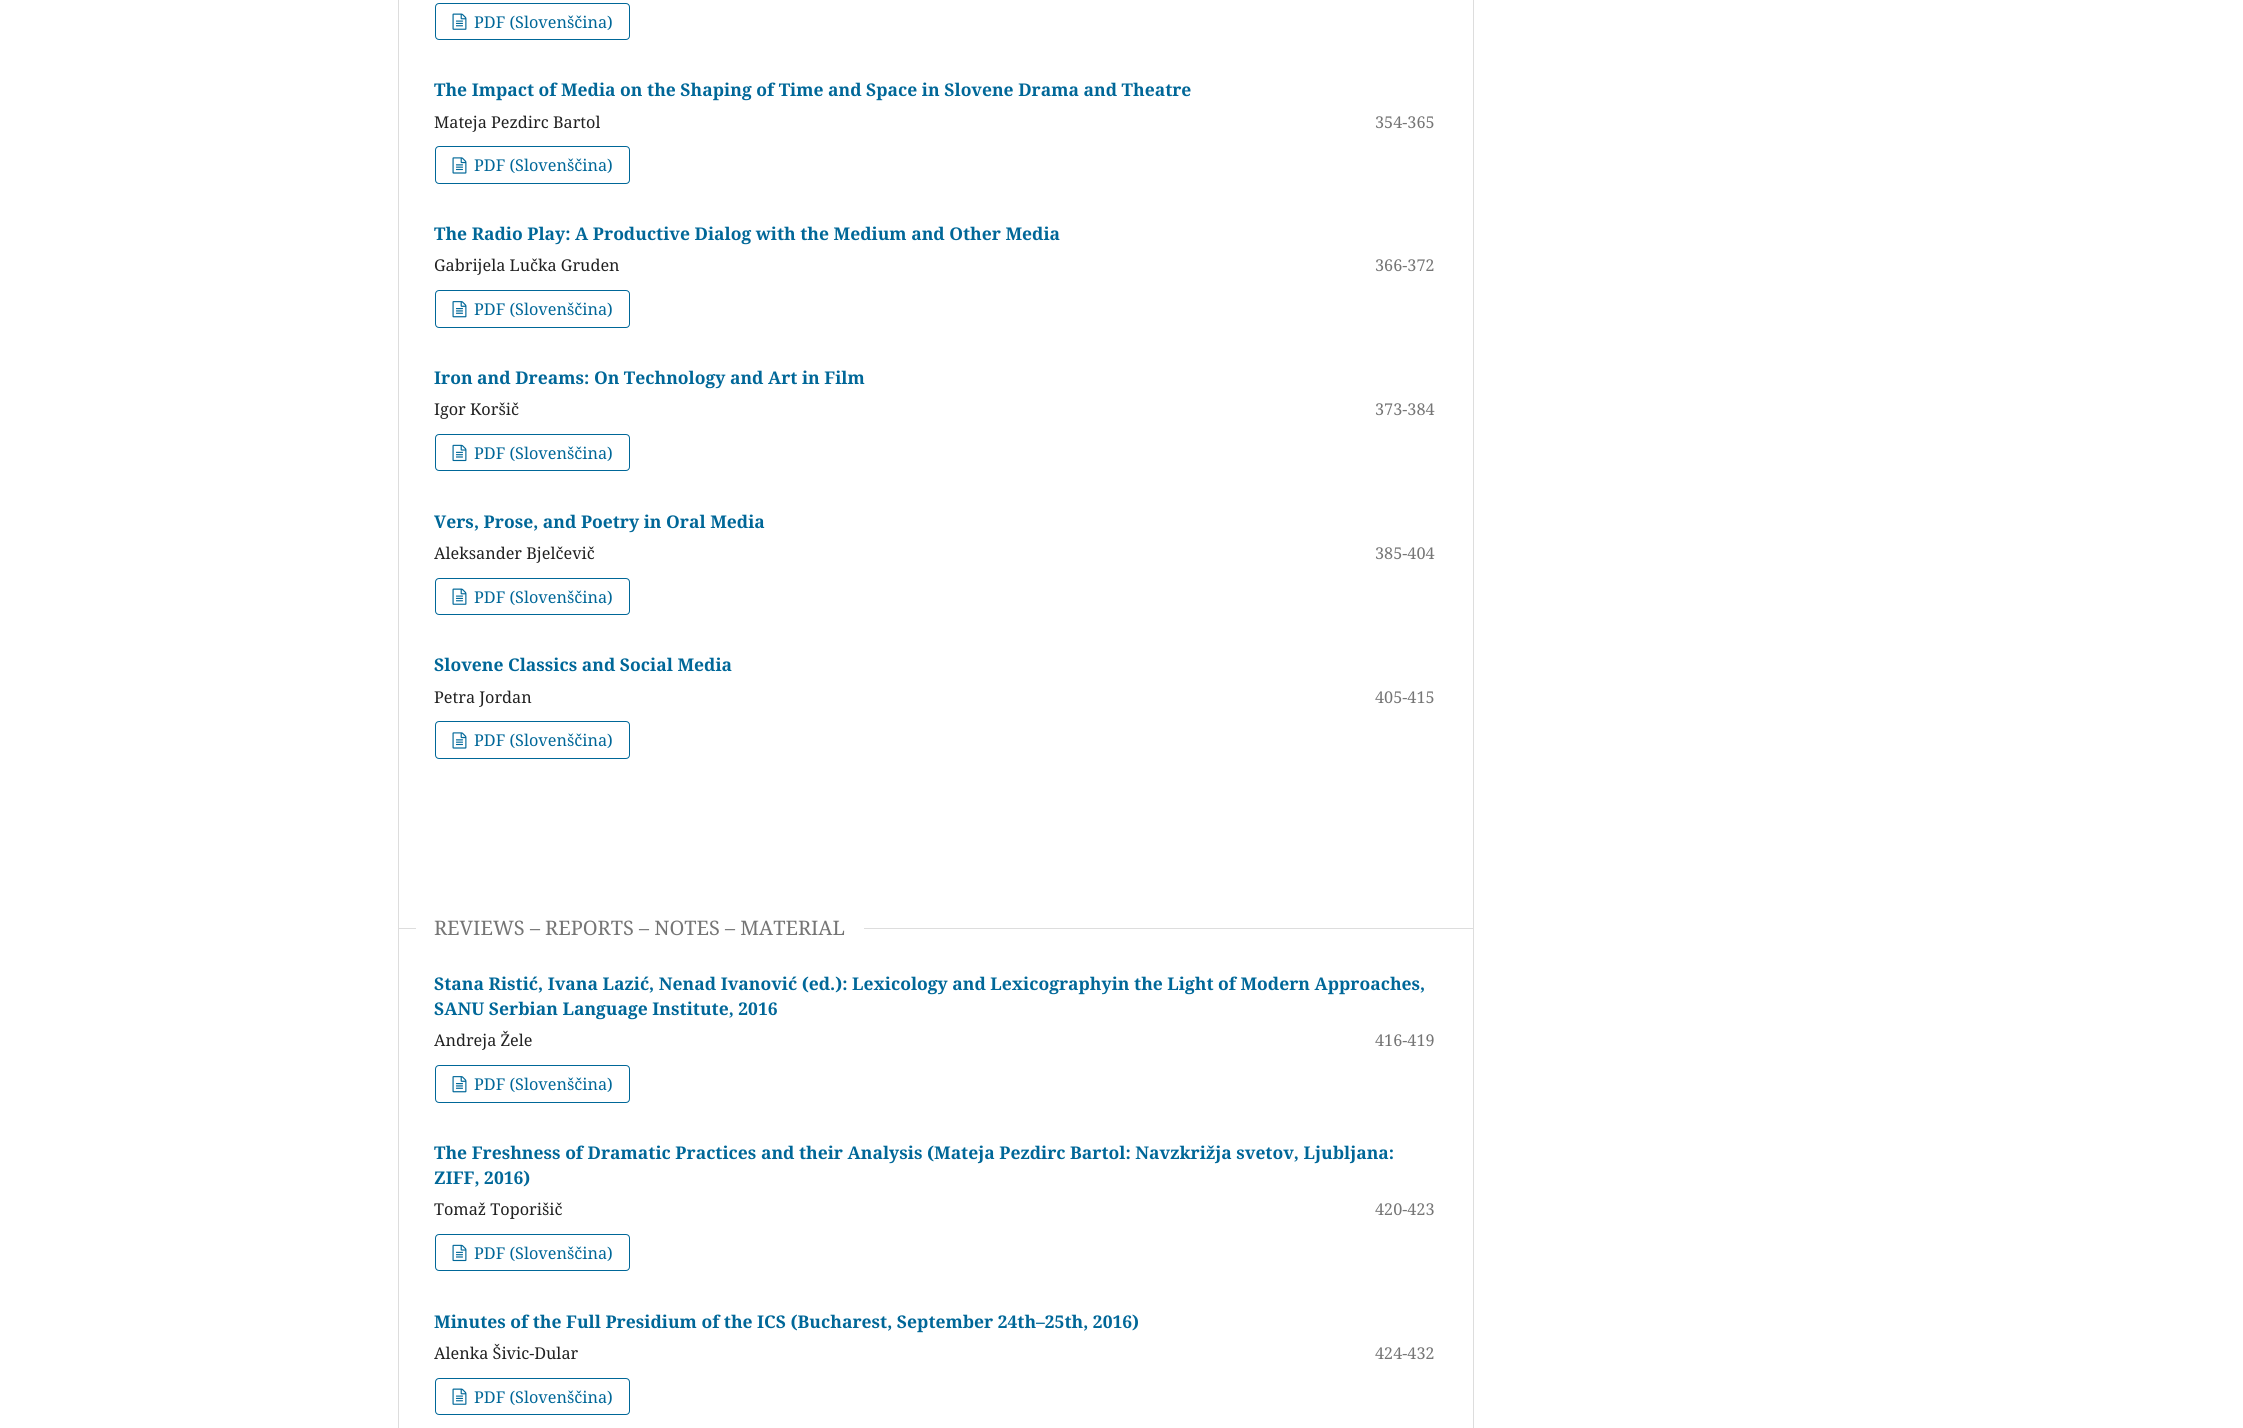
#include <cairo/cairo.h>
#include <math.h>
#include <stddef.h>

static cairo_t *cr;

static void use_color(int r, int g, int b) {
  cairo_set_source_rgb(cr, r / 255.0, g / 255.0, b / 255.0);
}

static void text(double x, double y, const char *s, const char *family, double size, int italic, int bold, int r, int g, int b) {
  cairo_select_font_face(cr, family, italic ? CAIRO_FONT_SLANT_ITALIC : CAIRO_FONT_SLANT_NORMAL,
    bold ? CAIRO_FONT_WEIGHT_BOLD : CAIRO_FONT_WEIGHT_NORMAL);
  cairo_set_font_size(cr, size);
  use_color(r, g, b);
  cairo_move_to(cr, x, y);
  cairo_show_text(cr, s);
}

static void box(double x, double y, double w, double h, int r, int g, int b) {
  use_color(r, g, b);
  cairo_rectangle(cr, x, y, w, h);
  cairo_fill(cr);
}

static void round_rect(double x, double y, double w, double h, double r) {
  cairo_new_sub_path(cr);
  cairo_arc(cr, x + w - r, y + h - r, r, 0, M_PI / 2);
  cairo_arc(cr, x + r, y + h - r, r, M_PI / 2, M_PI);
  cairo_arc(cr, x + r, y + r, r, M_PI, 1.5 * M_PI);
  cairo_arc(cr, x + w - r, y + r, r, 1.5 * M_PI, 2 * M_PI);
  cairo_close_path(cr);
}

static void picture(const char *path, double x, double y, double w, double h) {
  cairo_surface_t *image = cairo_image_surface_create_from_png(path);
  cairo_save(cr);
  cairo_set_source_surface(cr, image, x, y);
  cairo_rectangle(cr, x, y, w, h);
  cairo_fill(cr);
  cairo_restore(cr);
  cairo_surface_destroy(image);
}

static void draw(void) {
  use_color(255, 255, 255);
  cairo_paint(cr);
  box(398, 0, 1, 1428, 221, 221, 221);
  round_rect(435.5, 3.5, 194, 36, 3.5);
  use_color(0, 103, 152);
  cairo_set_line_width(cr, 1);
  cairo_stroke(cr);
  picture("img_01.png", 452, 13, 15, 17);
  round_rect(435.5, 146.5, 194, 37, 3.5);
  cairo_stroke(cr);
  picture("img_02.png", 452, 157, 15, 17);
  round_rect(435.5, 290.5, 194, 37, 3.5);
  cairo_stroke(cr);
  picture("img_03.png", 452, 301, 15, 17);
  round_rect(435.5, 434.5, 194, 36, 3.5);
  cairo_stroke(cr);
  picture("img_04.png", 452, 444, 15, 18);
  round_rect(435.5, 578.5, 194, 36, 3.5);
  cairo_stroke(cr);
  picture("img_01.png", 452, 588, 15, 17);
  round_rect(435.5, 721.5, 194, 37, 3.5);
  cairo_stroke(cr);
  picture("img_02.png", 452, 732, 15, 17);
  box(398, 928, 1075, 1, 221, 221, 221);
  box(416, 928, 448, 1, 255, 255, 255);
  round_rect(435.5, 1065.5, 194, 37, 3.5);
  use_color(0, 103, 152);
  cairo_stroke(cr);
  picture("img_03.png", 452, 1076, 15, 17);
  round_rect(435.5, 1234.5, 194, 36, 3.5);
  cairo_stroke(cr);
  picture("img_04.png", 452, 1244, 15, 18);
  round_rect(435.5, 1378.5, 194, 36, 3.5);
  cairo_stroke(cr);
  picture("img_01.png", 452, 1388, 15, 17);
  box(1473, 0, 1, 1428, 221, 221, 221);
  text(474, 28, "PDF (Slovenščina)", "Noto Serif", 16.25, 0, 0, 0, 103, 152);
  text(434, 96, "The Impact of Media on the Shaping of Time and Space in Slovene Drama and Theatre", "Noto Serif", 17.5, 0, 1, 0, 103, 152);
  text(434, 128, "Mateja Pezdirc Bartol", "Noto Serif", 16.25, 0, 0, 33, 33, 33);
  text(1375, 128, "354-365", "Noto Serif", 16.25, 0, 0, 117, 117, 117);
  text(474, 171, "PDF (Slovenščina)", "Noto Serif", 16.25, 0, 0, 0, 103, 152);
  text(434, 240, "The Radio Play: A Productive Dialog with the Medium and Other Media", "Noto Serif", 17.5, 0, 1, 0, 103, 152);
  text(434, 271, "Gabrijela Lučka Gruden", "Noto Serif", 16.25, 0, 0, 33, 33, 33);
  text(1375, 271, "366-372", "Noto Serif", 16.25, 0, 0, 117, 117, 117);
  text(474, 315, "PDF (Slovenščina)", "Noto Serif", 16.25, 0, 0, 0, 103, 152);
  text(434, 384, "Iron and Dreams: On Technology and Art in Film", "Noto Serif", 17.5, 0, 1, 0, 103, 152);
  text(434, 415, "Igor Koršič", "Noto Serif", 16.25, 0, 0, 33, 33, 33);
  text(1375, 415, "373-384", "Noto Serif", 16.25, 0, 0, 117, 117, 117);
  text(474, 459, "PDF (Slovenščina)", "Noto Serif", 16.25, 0, 0, 0, 103, 152);
  text(434, 528, "Vers, Prose, and Poetry in Oral Media", "Noto Serif", 17.5, 0, 1, 0, 103, 152);
  text(434, 559, "Aleksander Bjelčevič", "Noto Serif", 16.25, 0, 0, 33, 33, 33);
  text(1375, 559, "385-404", "Noto Serif", 16.25, 0, 0, 117, 117, 117);
  text(474, 603, "PDF (Slovenščina)", "Noto Serif", 16.25, 0, 0, 0, 103, 152);
  text(434, 671, "Slovene Classics and Social Media", "Noto Serif", 17.5, 0, 1, 0, 103, 152);
  text(434, 703, "Petra Jordan", "Noto Serif", 16.25, 0, 0, 33, 33, 33);
  text(1375, 703, "405-415", "Noto Serif", 16.25, 0, 0, 117, 117, 117);
  text(474, 746, "PDF (Slovenščina)", "Noto Serif", 16.25, 0, 0, 0, 103, 152);
  text(434, 935, "REVIEWS – REPORTS – NOTES – MATERIAL", "Noto Serif", 20, 0, 0, 117, 117, 117);
  text(434, 990, "Stana Ristić, Ivana Lazić, Nenad Ivanović (ed.): Lexicology and Lexicographyin the Light of Modern Approaches,", "Noto Serif", 17.5, 0, 1, 0, 103, 152);
  text(434, 1015, "SANU Serbian Language Institute, 2016", "Noto Serif", 17.5, 0, 1, 0, 103, 152);
  text(434, 1046, "Andreja Žele", "Noto Serif", 16.25, 0, 0, 33, 33, 33);
  text(1375, 1046, "416-419", "Noto Serif", 16.25, 0, 0, 117, 117, 117);
  text(474, 1090, "PDF (Slovenščina)", "Noto Serif", 16.25, 0, 0, 0, 103, 152);
  text(434, 1159, "The Freshness of Dramatic Practices and their Analysis (Mateja Pezdirc Bartol: Navzkrižja svetov, Ljubljana:", "Noto Serif", 17.5, 0, 1, 0, 103, 152);
  text(434, 1184, "ZIFF, 2016)", "Noto Serif", 17.5, 0, 1, 0, 103, 152);
  text(434, 1215, "Tomaž Toporišič", "Noto Serif", 16.25, 0, 0, 33, 33, 33);
  text(1375, 1215, "420-423", "Noto Serif", 16.25, 0, 0, 117, 117, 117);
  text(474, 1259, "PDF (Slovenščina)", "Noto Serif", 16.25, 0, 0, 0, 103, 152);
  text(434, 1328, "Minutes of the Full Presidium of the ICS (Bucharest, September 24th–25th, 2016)", "Noto Serif", 17.5, 0, 1, 0, 103, 152);
  text(434, 1359, "Alenka Šivic-Dular", "Noto Serif", 16.25, 0, 0, 33, 33, 33);
  text(1375, 1359, "424-432", "Noto Serif", 16.25, 0, 0, 117, 117, 117);
  text(474, 1403, "PDF (Slovenščina)", "Noto Serif", 16.25, 0, 0, 0, 103, 152);
}

int main(void) {
  cairo_surface_t *surface = cairo_image_surface_create(CAIRO_FORMAT_RGB24, 2243, 1428);
  cr = cairo_create(surface);
  cairo_font_options_t *options = cairo_font_options_create();
  cairo_font_options_set_hint_metrics(options, CAIRO_HINT_METRICS_OFF);
  cairo_font_options_set_hint_style(options, CAIRO_HINT_STYLE_NONE);
  cairo_set_font_options(cr, options);
  cairo_set_miter_limit(cr, 4);
  draw();
  cairo_surface_write_to_png(surface, "out.png");
  cairo_font_options_destroy(options);
  cairo_destroy(cr);
  cairo_surface_destroy(surface);
  return 0;
}
